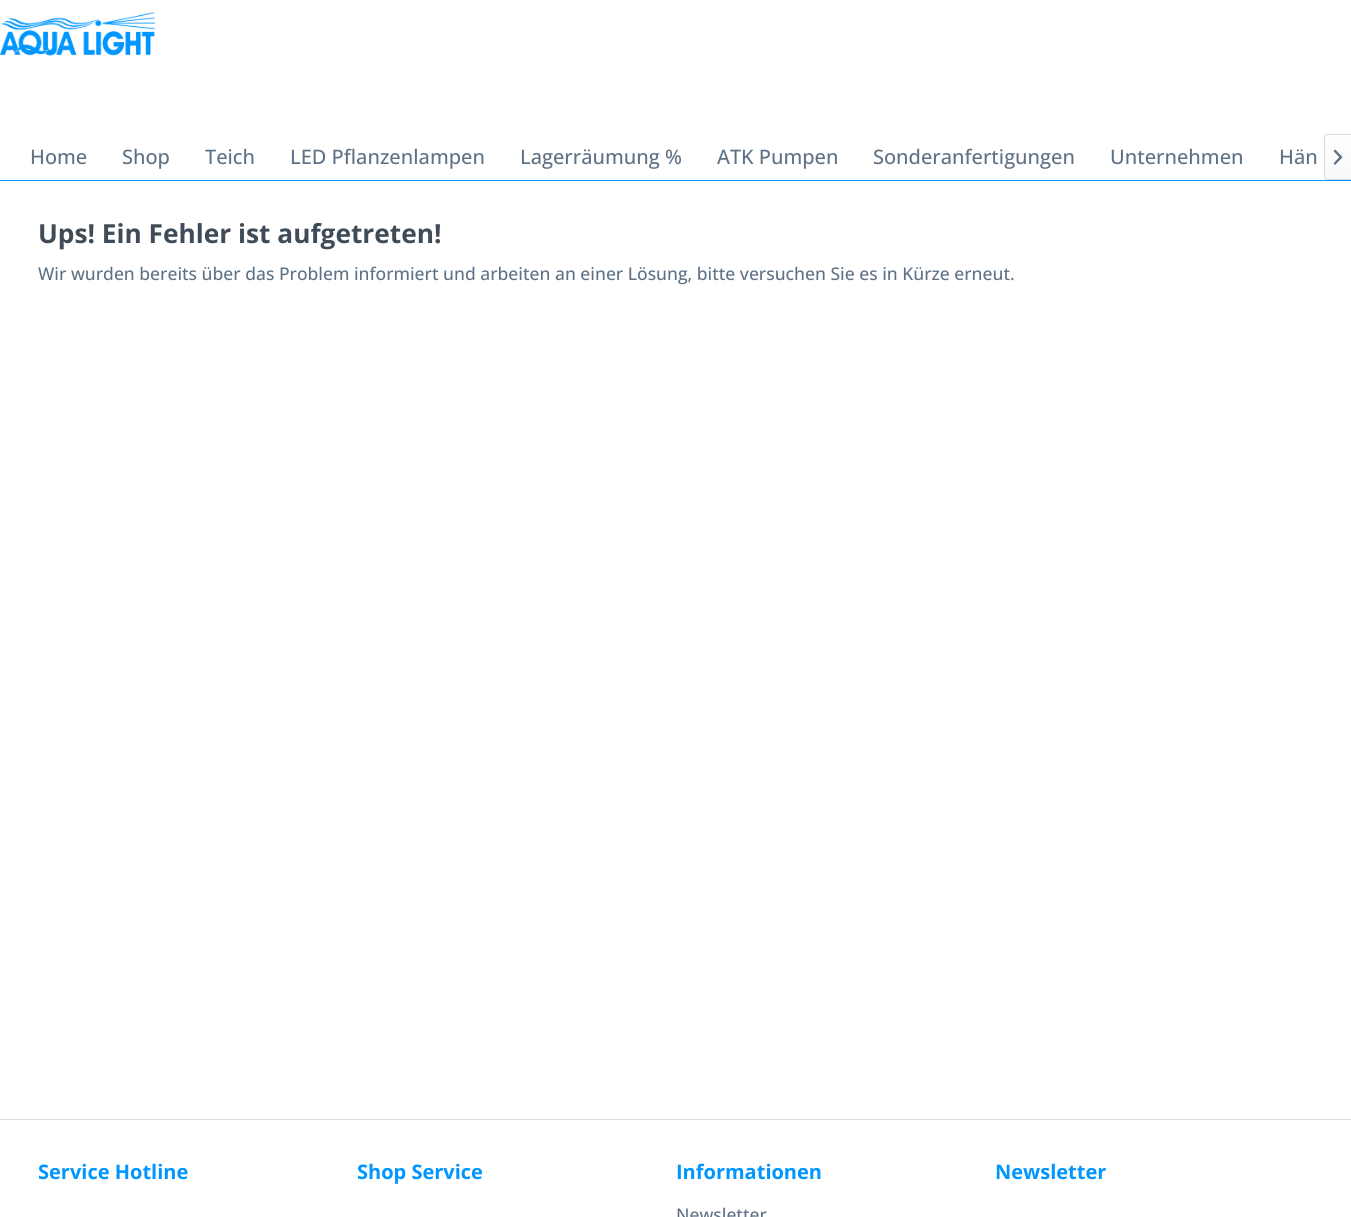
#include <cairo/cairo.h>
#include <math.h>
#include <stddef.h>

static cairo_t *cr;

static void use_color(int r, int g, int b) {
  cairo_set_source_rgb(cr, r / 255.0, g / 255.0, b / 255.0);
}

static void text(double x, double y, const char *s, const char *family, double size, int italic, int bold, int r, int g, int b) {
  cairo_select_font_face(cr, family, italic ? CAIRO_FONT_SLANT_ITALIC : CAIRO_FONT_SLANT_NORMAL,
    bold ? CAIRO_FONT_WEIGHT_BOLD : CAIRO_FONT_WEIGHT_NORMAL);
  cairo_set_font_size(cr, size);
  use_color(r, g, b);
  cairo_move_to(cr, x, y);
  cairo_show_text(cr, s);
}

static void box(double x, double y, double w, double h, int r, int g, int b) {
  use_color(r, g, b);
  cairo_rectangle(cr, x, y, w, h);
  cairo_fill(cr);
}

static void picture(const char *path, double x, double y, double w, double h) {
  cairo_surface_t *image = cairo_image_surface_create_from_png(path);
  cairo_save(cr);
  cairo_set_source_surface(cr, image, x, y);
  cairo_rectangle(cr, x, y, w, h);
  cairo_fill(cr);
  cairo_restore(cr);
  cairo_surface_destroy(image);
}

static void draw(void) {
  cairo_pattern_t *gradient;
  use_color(255, 255, 255);
  cairo_paint(cr);
  picture("img_01.png", 0, 12, 156, 44);
  box(0, 180, 1351, 1, 0, 150, 255);
  gradient = cairo_pattern_create_linear(1338, 135, 1338, 179);
  cairo_pattern_add_color_stop_rgba(gradient, 0, 1, 1, 1, 1);
  cairo_pattern_add_color_stop_rgba(gradient, 1, 0.973, 0.973, 0.98, 1);
  cairo_set_source(cr, gradient);
  cairo_pattern_destroy(gradient);
  cairo_new_path(cr);
  cairo_move_to(cr, 1327.5, 135);
  cairo_line_to(cr, 1351, 135);
  cairo_line_to(cr, 1351, 179);
  cairo_line_to(cr, 1327.5, 179);
  cairo_curve_to(cr, 1326, 179, 1325, 178, 1325, 176.5);
  cairo_line_to(cr, 1325, 137.5);
  cairo_curve_to(cr, 1325, 136, 1326, 135, 1327.5, 135);
  cairo_close_path(cr);
  cairo_fill(cr);
  use_color(218, 218, 229);
  cairo_set_fill_rule(cr, CAIRO_FILL_RULE_EVEN_ODD);
  cairo_new_path(cr);
  cairo_move_to(cr, 1328, 134);
  cairo_line_to(cr, 1351, 134);
  cairo_line_to(cr, 1351, 180);
  cairo_line_to(cr, 1328, 180);
  cairo_curve_to(cr, 1325, 180, 1324, 178, 1324, 176);
  cairo_line_to(cr, 1324, 138);
  cairo_curve_to(cr, 1324, 135, 1325, 134, 1328, 134);
  cairo_close_path(cr);
  cairo_move_to(cr, 1328, 135);
  cairo_line_to(cr, 1351, 135);
  cairo_line_to(cr, 1351, 179);
  cairo_line_to(cr, 1328, 179);
  cairo_curve_to(cr, 1326, 179, 1325, 178, 1325, 176);
  cairo_line_to(cr, 1325, 138);
  cairo_curve_to(cr, 1325, 136, 1326, 135, 1328, 135);
  cairo_close_path(cr);
  cairo_fill(cr);
  picture("img_02.png", 1333, 149, 10, 16);
  box(0, 1119, 1351, 1, 218, 218, 229);
  text(30, 164, "Home", "Open Sans Medium", 20, 0, 0, 95, 114, 133);
  text(122, 164, "Shop", "Open Sans Medium", 20, 0, 0, 95, 114, 133);
  text(205, 164, "Teich", "Open Sans Medium", 20, 0, 0, 95, 114, 133);
  text(290, 164, "LED Pflanzenlampen", "Open Sans Medium", 20, 0, 0, 95, 114, 133);
  text(520, 164, "Lagerräumung %", "Open Sans Medium", 20, 0, 0, 95, 114, 133);
  text(717, 164, "ATK Pumpen", "Open Sans Medium", 20, 0, 0, 95, 114, 133);
  text(873, 164, "Sonderanfertigungen", "Open Sans Medium", 20, 0, 0, 95, 114, 133);
  text(1110, 164, "Unternehmen", "Open Sans Medium", 20, 0, 0, 95, 114, 133);
  text(1279, 164, "Hän", "Open Sans Medium", 20, 0, 0, 95, 114, 133);
  text(38, 243, "Ups! Ein Fehler ist aufgetreten!", "Open Sans", 26.25, 0, 1, 63, 76, 88);
  text(38, 280, "Wir wurden bereits über das Problem informiert und arbeiten an einer Lösung, bitte versuchen Sie es in Kürze erneut.", "Open Sans Medium", 17.5, 0, 0, 95, 114, 133);
  text(38, 1179, "Service Hotline", "Open Sans", 20, 0, 1, 0, 150, 255);
  text(357, 1179, "Shop Service", "Open Sans", 20, 0, 1, 0, 150, 255);
  text(676, 1179, "Informationen", "Open Sans", 20, 0, 1, 0, 150, 255);
  text(676, 1221, "Newsletter", "Open Sans Medium", 17.5, 0, 0, 95, 114, 133);
  text(995, 1179, "Newsletter", "Open Sans", 20, 0, 1, 0, 150, 255);
}

int main(void) {
  cairo_surface_t *surface = cairo_image_surface_create(CAIRO_FORMAT_RGB24, 1351, 1217);
  cr = cairo_create(surface);
  cairo_font_options_t *options = cairo_font_options_create();
  cairo_font_options_set_hint_metrics(options, CAIRO_HINT_METRICS_OFF);
  cairo_font_options_set_hint_style(options, CAIRO_HINT_STYLE_NONE);
  cairo_set_font_options(cr, options);
  cairo_set_miter_limit(cr, 4);
  draw();
  cairo_surface_write_to_png(surface, "out.png");
  cairo_font_options_destroy(options);
  cairo_destroy(cr);
  cairo_surface_destroy(surface);
  return 0;
}
